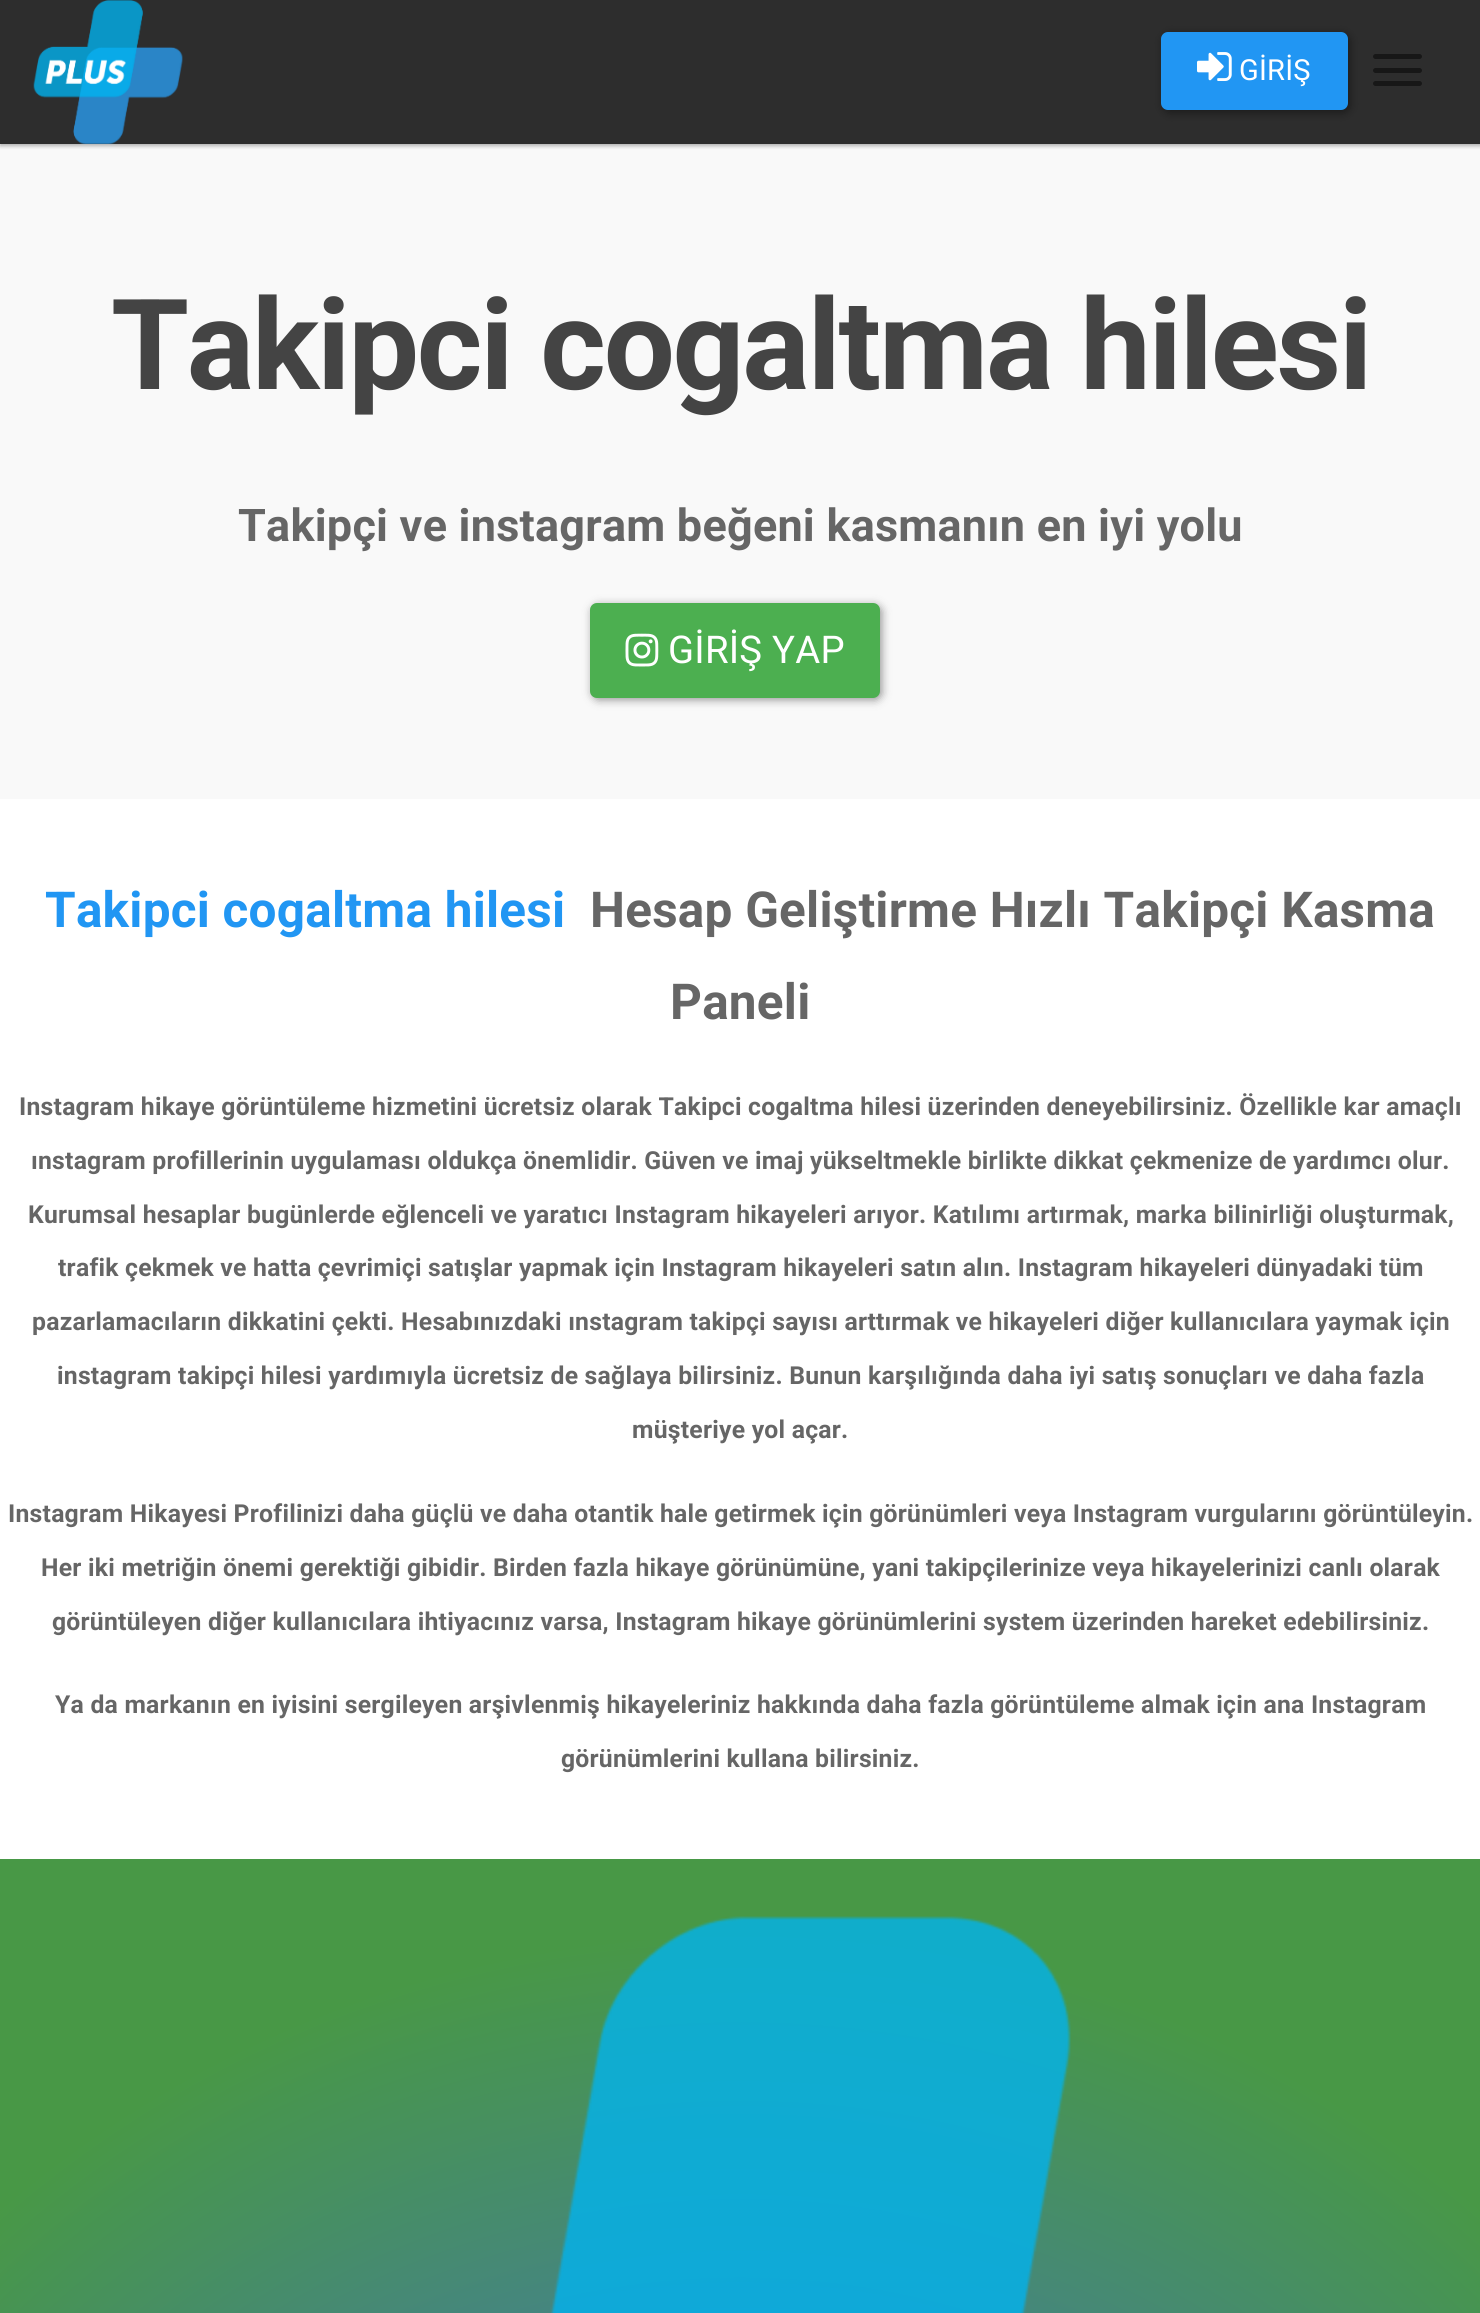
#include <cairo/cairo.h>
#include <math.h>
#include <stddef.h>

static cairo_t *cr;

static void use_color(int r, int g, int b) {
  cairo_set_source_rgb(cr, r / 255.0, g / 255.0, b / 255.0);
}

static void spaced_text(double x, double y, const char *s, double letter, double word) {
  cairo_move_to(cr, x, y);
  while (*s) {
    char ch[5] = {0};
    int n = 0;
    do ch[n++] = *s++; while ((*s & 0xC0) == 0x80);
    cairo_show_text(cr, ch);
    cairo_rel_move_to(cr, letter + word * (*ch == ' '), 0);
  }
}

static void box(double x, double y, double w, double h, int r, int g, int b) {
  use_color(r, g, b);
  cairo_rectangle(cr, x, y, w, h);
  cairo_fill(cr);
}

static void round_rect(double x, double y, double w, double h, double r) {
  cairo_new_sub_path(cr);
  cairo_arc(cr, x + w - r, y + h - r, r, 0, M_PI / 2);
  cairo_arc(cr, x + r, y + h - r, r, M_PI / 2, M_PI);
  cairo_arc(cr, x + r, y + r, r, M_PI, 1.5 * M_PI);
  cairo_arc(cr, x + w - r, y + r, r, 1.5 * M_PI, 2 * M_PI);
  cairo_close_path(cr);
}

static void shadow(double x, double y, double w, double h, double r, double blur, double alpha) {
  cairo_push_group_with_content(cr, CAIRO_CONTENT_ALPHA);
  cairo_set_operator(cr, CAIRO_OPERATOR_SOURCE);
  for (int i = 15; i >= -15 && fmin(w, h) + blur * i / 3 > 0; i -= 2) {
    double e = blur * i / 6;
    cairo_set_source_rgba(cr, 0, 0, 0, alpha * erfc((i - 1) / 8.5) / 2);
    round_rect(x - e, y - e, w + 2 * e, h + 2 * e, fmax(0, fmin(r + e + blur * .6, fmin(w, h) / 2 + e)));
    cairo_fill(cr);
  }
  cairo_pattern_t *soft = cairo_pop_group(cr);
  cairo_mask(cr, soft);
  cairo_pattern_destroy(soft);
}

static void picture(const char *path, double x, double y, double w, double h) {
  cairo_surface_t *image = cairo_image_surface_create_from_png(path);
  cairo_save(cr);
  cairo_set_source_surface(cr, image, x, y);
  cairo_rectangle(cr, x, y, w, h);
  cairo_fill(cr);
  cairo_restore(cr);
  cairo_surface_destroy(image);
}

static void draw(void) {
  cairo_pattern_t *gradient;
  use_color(255, 255, 255);
  cairo_paint(cr);
  box(0, 144, 1480, 655, 249, 249, 249);
  use_color(0, 0, 0);
  shadow(0, 2, 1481, 144, 0, 2, 0.3);
  box(0, 0, 1480, 144, 45, 45, 45);
  picture("img_01.png", 33, 0, 150, 144);
  use_color(0, 0, 0);
  shadow(1163, 34, 187, 79, 7, 4.5, 0.4);
  use_color(33, 150, 243);
  round_rect(1161, 32, 187, 78, 7);
  cairo_fill(cr);
  picture("img_02.png", 1197, 52, 35, 29);
  use_color(23, 23, 23);
  round_rect(1373, 54, 49, 5, 2.5);
  cairo_fill(cr);
  round_rect(1373, 68, 49, 5, 2.5);
  cairo_fill(cr);
  round_rect(1373, 81, 49, 5, 2.5);
  cairo_fill(cr);
  use_color(0, 0, 0);
  shadow(592, 605, 290, 95, 7, 4.5, 0.4);
  use_color(76, 175, 80);
  round_rect(590, 603, 290, 95, 7);
  cairo_fill(cr);
  picture("img_03.png", 625, 633, 34, 34);
  gradient = cairo_pattern_create_radial(740, 3071, 0, 740, 3071, 1421);
  cairo_pattern_add_color_stop_rgba(gradient, 0, 0.247, 0.369, 0.984, 1);
  cairo_pattern_add_color_stop_rgba(gradient, 0.8, 0.282, 0.596, 0.275, 1);
  cairo_set_source(cr, gradient);
  cairo_pattern_destroy(gradient);
  cairo_rectangle(cr, 0, 1859, 1480, 454);
  cairo_fill(cr);
  picture("img_04.png", 550, 1916, 521, 397);
  cairo_select_font_face(cr, "Roboto", CAIRO_FONT_SLANT_NORMAL, CAIRO_FONT_WEIGHT_NORMAL);
  cairo_set_font_size(cr, 29);
  use_color(255, 255, 255);
  spaced_text(1239, 80, "GİRİŞ", 0.23, 0);
  cairo_select_font_face(cr, "Roboto", CAIRO_FONT_SLANT_NORMAL, CAIRO_FONT_WEIGHT_BOLD);
  cairo_set_font_size(cr, 126);
  use_color(68, 68, 68);
  spaced_text(111, 389, "Takipci cogaltma hilesi", -2.25, 0);
  cairo_set_font_size(cr, 45);
  use_color(102, 102, 102);
  spaced_text(238, 541, "Takipçi ve instagram beğeni kasmanın en iyi yolu", 0.23, 0);
  cairo_select_font_face(cr, "Roboto", CAIRO_FONT_SLANT_NORMAL, CAIRO_FONT_WEIGHT_NORMAL);
  cairo_set_font_size(cr, 38.25);
  use_color(255, 255, 255);
  spaced_text(668, 663, "GİRİŞ YAP", 0.23, 0);
  cairo_select_font_face(cr, "Roboto", CAIRO_FONT_SLANT_NORMAL, CAIRO_FONT_WEIGHT_BOLD);
  cairo_set_font_size(cr, 49.5);
  use_color(33, 150, 243);
  spaced_text(45, 927, "Takipci cogaltma hilesi", 0.23, 0);
  use_color(102, 102, 102);
  spaced_text(590, 927, "Hesap Geliştirme Hızlı Takipçi Kasma", 0.23, 0);
  spaced_text(670, 1019, "Paneli", 0.23, 0);
  cairo_set_font_size(cr, 24.75);
  spaced_text(19, 1115, "Instagram hikaye görüntüleme hizmetini ücretsiz olarak Takipci cogaltma hilesi üzerinden deneyebilirsiniz. Özellikle kar amaçlı", 0.23, 0);
  spaced_text(31, 1169, "ınstagram profillerinin uygulaması oldukça önemlidir. Güven ve imaj yükseltmekle birlikte dikkat çekmenize de yardımcı olur.", 0.23, 0);
  spaced_text(28, 1223, "Kurumsal hesaplar bugünlerde eğlenceli ve yaratıcı Instagram hikayeleri arıyor. Katılımı artırmak, marka bilinirliği oluşturmak,", 0.23, 0);
  spaced_text(58, 1276, "trafik çekmek ve hatta çevrimiçi satışlar yapmak için Instagram hikayeleri satın alın. Instagram hikayeleri dünyadaki tüm", 0.23, 0);
  spaced_text(32, 1330, "pazarlamacıların dikkatini çekti. Hesabınızdaki ınstagram takipçi sayısı arttırmak ve hikayeleri diğer kullanıcılara yaymak için", 0.23, 0);
  spaced_text(57, 1384, "instagram takipçi hilesi yardımıyla ücretsiz de sağlaya bilirsiniz. Bunun karşılığında daha iyi satış sonuçları ve daha fazla", 0.23, 0);
  spaced_text(632, 1438, "müşteriye yol açar.", 0.23, 0);
  spaced_text(8, 1522, "Instagram Hikayesi Profilinizi daha güçlü ve daha otantik hale getirmek için görünümleri veya Instagram vurgularını görüntüleyin.", 0.23, 0);
  spaced_text(41, 1576, "Her iki metriğin önemi gerektiği gibidir. Birden fazla hikaye görünümüne, yani takipçilerinize veya hikayelerinizi canlı olarak", 0.23, 0);
  spaced_text(52, 1630, "görüntüleyen diğer kullanıcılara ihtiyacınız varsa, Instagram hikaye görünümlerini system üzerinden hareket edebilirsiniz.", 0.23, 0);
  spaced_text(55, 1713, "Ya da markanın en iyisini sergileyen arşivlenmiş hikayeleriniz hakkında daha fazla görüntüleme almak için ana Instagram", 0.23, 0);
  spaced_text(561, 1767, "görünümlerini kullana bilirsiniz.", 0.23, 0);
}

int main(void) {
  cairo_surface_t *surface = cairo_image_surface_create(CAIRO_FORMAT_RGB24, 1480, 2313);
  cr = cairo_create(surface);
  cairo_font_options_t *options = cairo_font_options_create();
  cairo_font_options_set_hint_metrics(options, CAIRO_HINT_METRICS_OFF);
  cairo_font_options_set_hint_style(options, CAIRO_HINT_STYLE_NONE);
  cairo_set_font_options(cr, options);
  cairo_set_miter_limit(cr, 4);
  draw();
  cairo_surface_write_to_png(surface, "out.png");
  cairo_font_options_destroy(options);
  cairo_destroy(cr);
  cairo_surface_destroy(surface);
  return 0;
}
